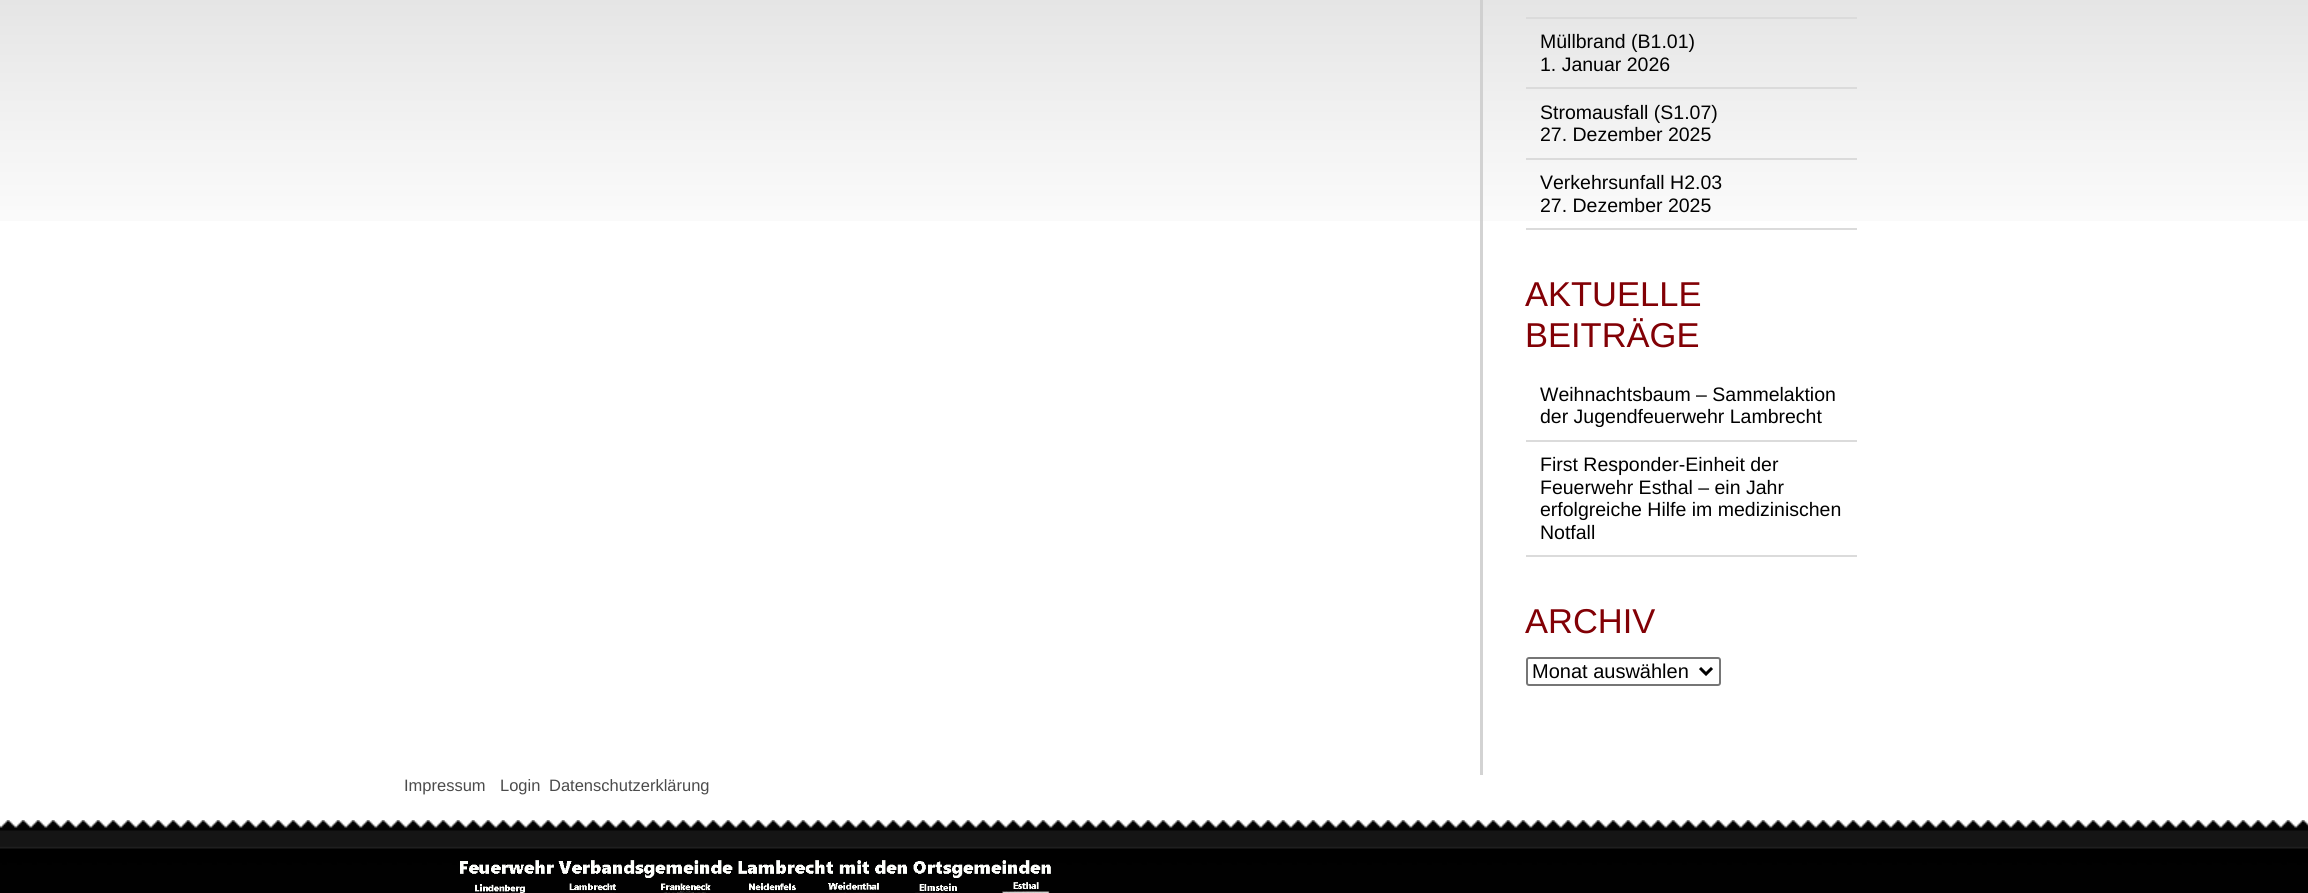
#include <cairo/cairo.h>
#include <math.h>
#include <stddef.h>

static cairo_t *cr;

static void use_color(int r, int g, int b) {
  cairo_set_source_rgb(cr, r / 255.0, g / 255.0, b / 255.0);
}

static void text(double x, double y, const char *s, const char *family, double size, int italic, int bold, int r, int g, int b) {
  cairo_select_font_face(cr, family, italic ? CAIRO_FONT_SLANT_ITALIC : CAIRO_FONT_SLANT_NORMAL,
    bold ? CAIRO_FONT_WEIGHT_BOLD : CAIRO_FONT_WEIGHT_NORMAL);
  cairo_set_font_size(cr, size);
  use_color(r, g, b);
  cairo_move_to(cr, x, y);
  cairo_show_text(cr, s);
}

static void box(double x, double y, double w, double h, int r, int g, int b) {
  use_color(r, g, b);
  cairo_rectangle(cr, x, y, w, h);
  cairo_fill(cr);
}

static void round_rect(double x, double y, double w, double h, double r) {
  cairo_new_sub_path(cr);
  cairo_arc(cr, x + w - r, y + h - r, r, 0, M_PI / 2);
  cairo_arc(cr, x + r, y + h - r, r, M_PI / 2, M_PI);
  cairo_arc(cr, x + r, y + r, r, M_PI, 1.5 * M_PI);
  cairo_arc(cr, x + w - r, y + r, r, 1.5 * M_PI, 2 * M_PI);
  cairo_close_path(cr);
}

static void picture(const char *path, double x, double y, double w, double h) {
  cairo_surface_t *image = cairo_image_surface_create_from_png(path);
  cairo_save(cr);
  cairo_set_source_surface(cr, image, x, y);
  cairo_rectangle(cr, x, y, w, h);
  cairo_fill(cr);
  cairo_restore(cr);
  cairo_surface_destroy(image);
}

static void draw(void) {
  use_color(255, 255, 255);
  cairo_paint(cr);
  picture("img_01.png", 0, 0, 2308, 221);
  picture("img_02.png", 0, 820, 2308, 73);
  cairo_set_source_rgba(cr, 0.8, 0.8, 0.8, 0.87);
  cairo_rectangle(cr, 1480, 0, 3, 775);
  cairo_fill(cr);
  box(1526, 17, 331, 2, 219, 219, 219);
  box(1526, 87, 331, 2, 219, 219, 219);
  box(1526, 158, 331, 2, 219, 219, 219);
  box(1526, 228, 331, 2, 219, 219, 219);
  box(1526, 440, 331, 2, 219, 219, 219);
  box(1526, 555, 331, 2, 219, 219, 219);
  round_rect(1527, 658, 193, 27, 2);
  use_color(118, 118, 118);
  cairo_stroke(cr);
  cairo_new_path(cr);
  cairo_move_to(cr, 1700, 668);
  cairo_line_to(cr, 1706, 674);
  cairo_line_to(cr, 1712, 668);
  use_color(0, 0, 0);
  cairo_set_line_width(cr, 3);
  cairo_stroke(cr);
  picture("img_03.png", 460, 860, 591, 33);
  text(1540, 48, "Müllbrand (B1.01)", "Liberation Sans", 19.5, 0, 0, 0, 0, 0);
  text(1540, 71, "1. Januar 2026", "Liberation Sans", 19.5, 0, 0, 0, 0, 0);
  text(1540, 119, "Stromausfall (S1.07)", "Liberation Sans", 19.5, 0, 0, 0, 0, 0);
  text(1540, 141, "27. Dezember 2025", "Liberation Sans", 19.5, 0, 0, 0, 0, 0);
  text(1540, 189, "Verkehrsunfall H2.03", "Liberation Sans", 19.5, 0, 0, 0, 0, 0);
  text(1540, 212, "27. Dezember 2025", "Liberation Sans", 19.5, 0, 0, 0, 0, 0);
  text(1525, 306, "AKTUELLE", "Liberation Sans", 34.5, 0, 0, 130, 0, 5);
  text(1525, 347, "BEITRÄGE", "Liberation Sans", 34.5, 0, 0, 130, 0, 5);
  text(1540, 401, "Weihnachtsbaum – Sammelaktion", "Liberation Sans", 19.5, 0, 0, 0, 0, 0);
  text(1540, 423, "der Jugendfeuerwehr Lambrecht", "Liberation Sans", 19.5, 0, 0, 0, 0, 0);
  text(1540, 471, "First Responder-Einheit der", "Liberation Sans", 19.5, 0, 0, 0, 0, 0);
  text(1540, 494, "Feuerwehr Esthal – ein Jahr", "Liberation Sans", 19.5, 0, 0, 0, 0, 0);
  text(1540, 516, "erfolgreiche Hilfe im medizinischen", "Liberation Sans", 19.5, 0, 0, 0, 0, 0);
  text(1540, 539, "Notfall", "Liberation Sans", 19.5, 0, 0, 0, 0, 0);
  text(1525, 633, "ARCHIV", "Liberation Sans", 34.5, 0, 0, 130, 0, 5);
  text(1532, 678, "Monat auswählen", "Liberation Sans", 20, 0, 0, 0, 0, 0);
  text(404, 791, "Impressum", "Liberation Sans", 16.5, 0, 0, 75, 75, 75);
  text(500, 791, "Login", "Liberation Sans", 16.5, 0, 0, 75, 75, 75);
  text(549, 791, "Datenschutzerklärung", "Liberation Sans", 16.5, 0, 0, 75, 75, 75);
}

int main(void) {
  cairo_surface_t *surface = cairo_image_surface_create(CAIRO_FORMAT_RGB24, 2308, 893);
  cr = cairo_create(surface);
  cairo_font_options_t *options = cairo_font_options_create();
  cairo_font_options_set_hint_metrics(options, CAIRO_HINT_METRICS_OFF);
  cairo_font_options_set_hint_style(options, CAIRO_HINT_STYLE_NONE);
  cairo_set_font_options(cr, options);
  cairo_set_miter_limit(cr, 4);
  draw();
  cairo_surface_write_to_png(surface, "out.png");
  cairo_font_options_destroy(options);
  cairo_destroy(cr);
  cairo_surface_destroy(surface);
  return 0;
}
